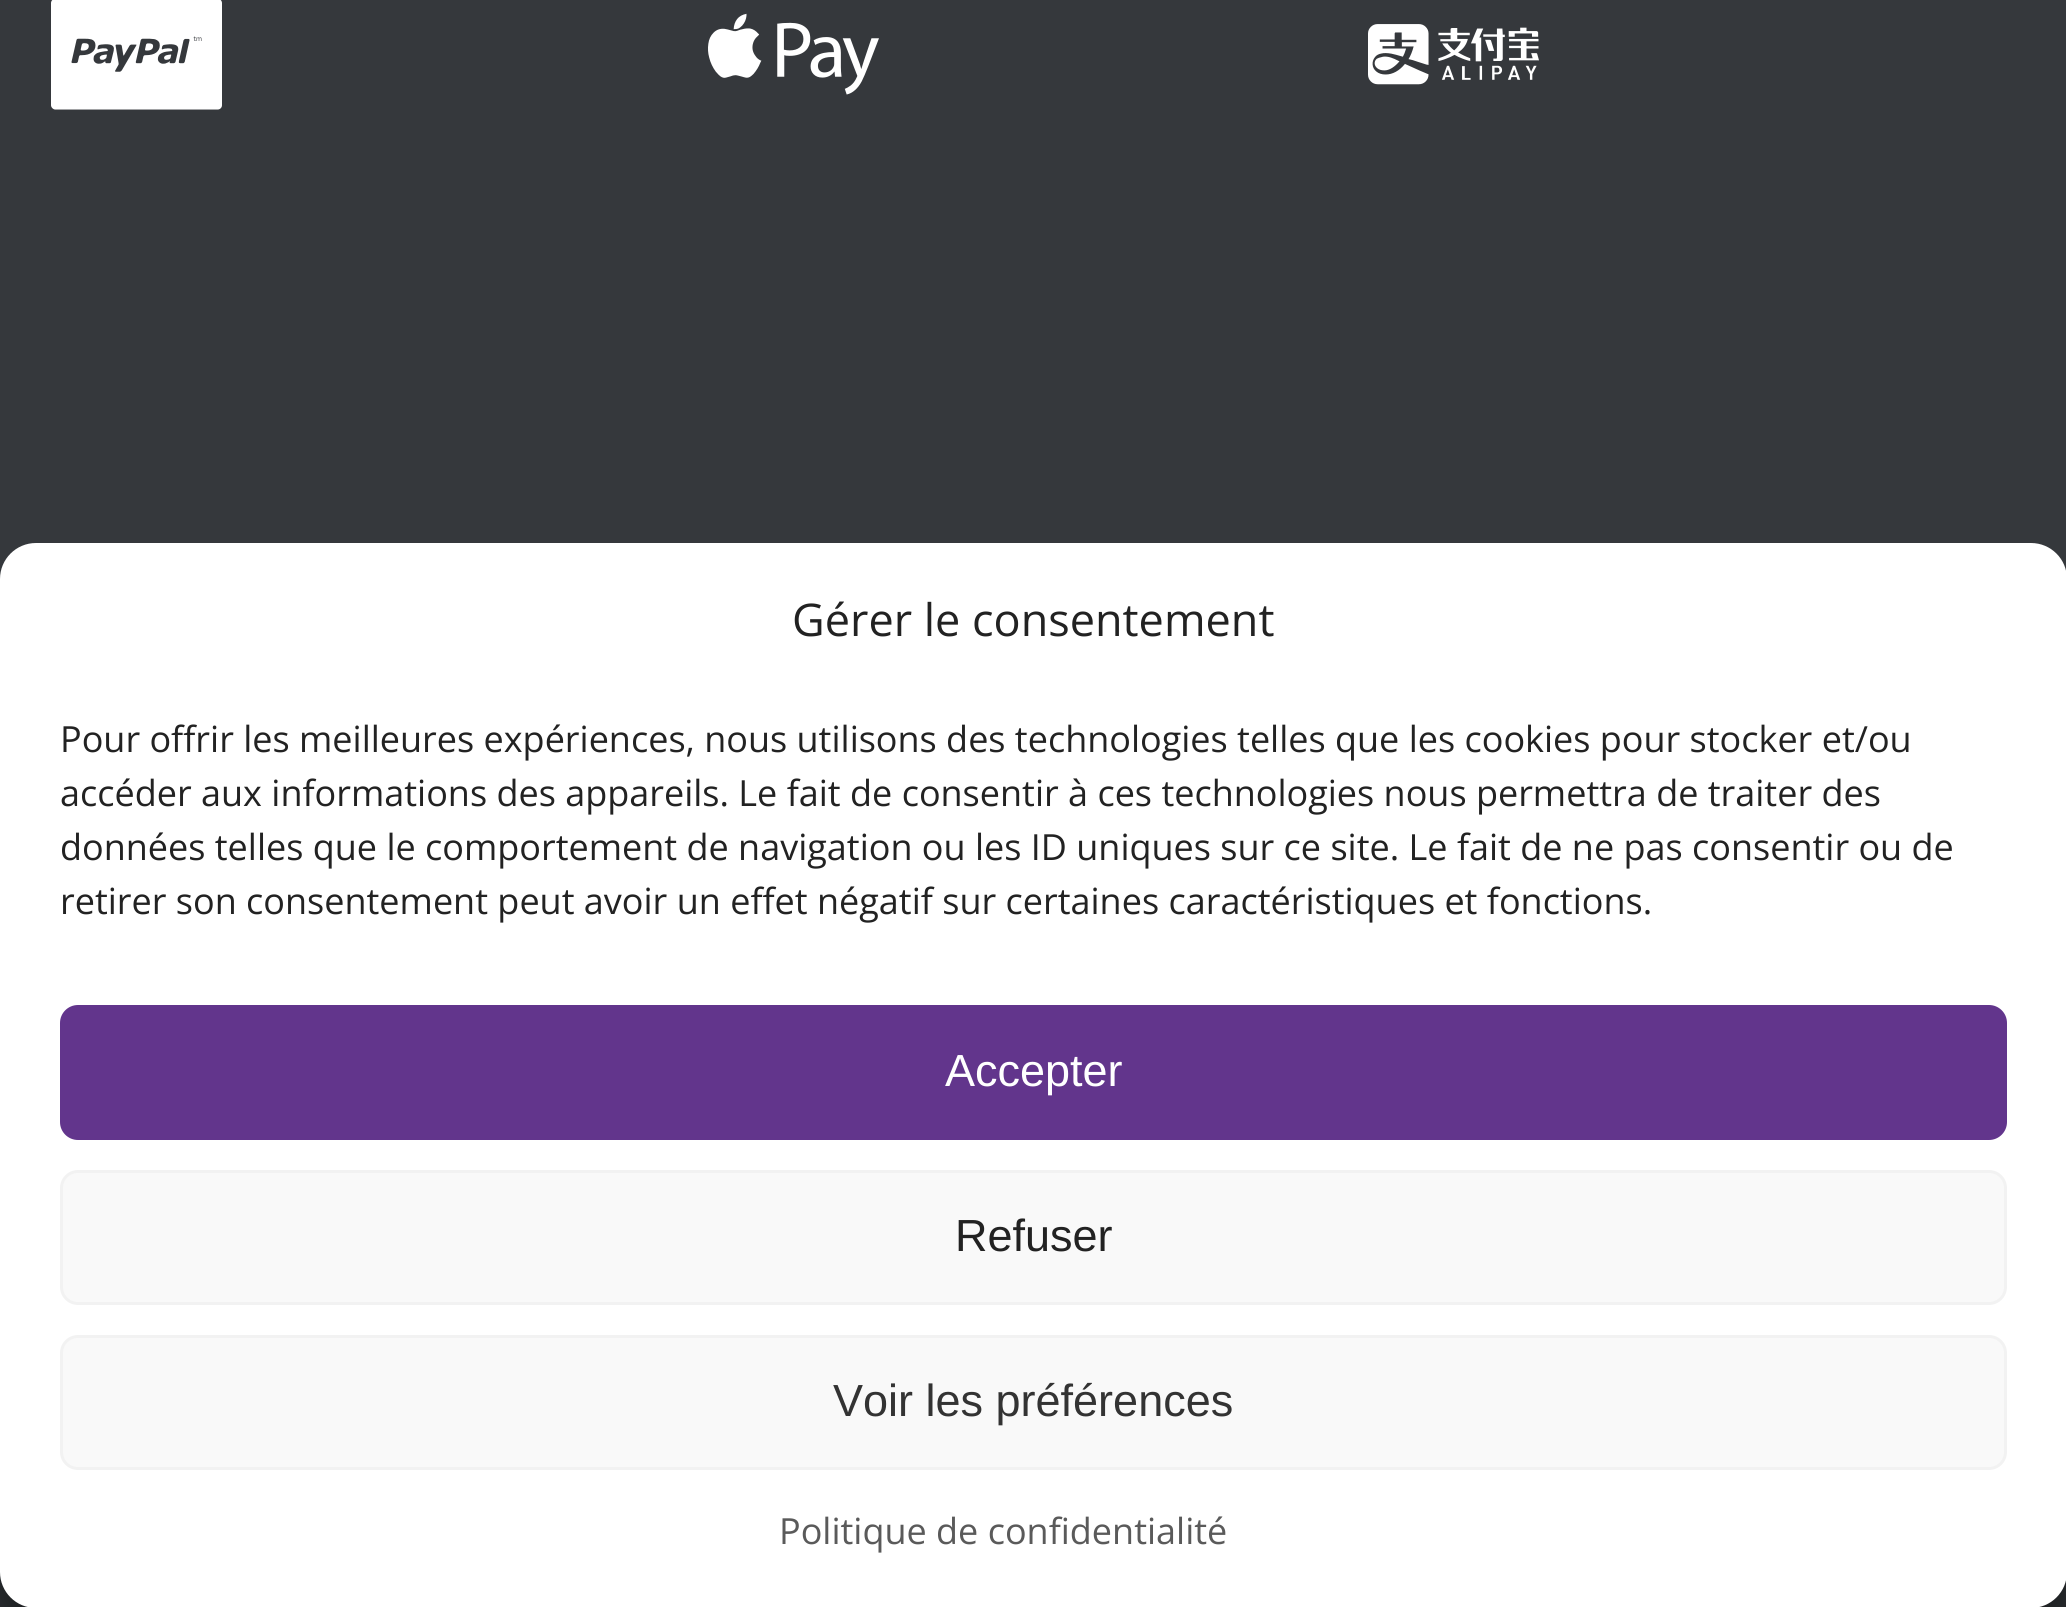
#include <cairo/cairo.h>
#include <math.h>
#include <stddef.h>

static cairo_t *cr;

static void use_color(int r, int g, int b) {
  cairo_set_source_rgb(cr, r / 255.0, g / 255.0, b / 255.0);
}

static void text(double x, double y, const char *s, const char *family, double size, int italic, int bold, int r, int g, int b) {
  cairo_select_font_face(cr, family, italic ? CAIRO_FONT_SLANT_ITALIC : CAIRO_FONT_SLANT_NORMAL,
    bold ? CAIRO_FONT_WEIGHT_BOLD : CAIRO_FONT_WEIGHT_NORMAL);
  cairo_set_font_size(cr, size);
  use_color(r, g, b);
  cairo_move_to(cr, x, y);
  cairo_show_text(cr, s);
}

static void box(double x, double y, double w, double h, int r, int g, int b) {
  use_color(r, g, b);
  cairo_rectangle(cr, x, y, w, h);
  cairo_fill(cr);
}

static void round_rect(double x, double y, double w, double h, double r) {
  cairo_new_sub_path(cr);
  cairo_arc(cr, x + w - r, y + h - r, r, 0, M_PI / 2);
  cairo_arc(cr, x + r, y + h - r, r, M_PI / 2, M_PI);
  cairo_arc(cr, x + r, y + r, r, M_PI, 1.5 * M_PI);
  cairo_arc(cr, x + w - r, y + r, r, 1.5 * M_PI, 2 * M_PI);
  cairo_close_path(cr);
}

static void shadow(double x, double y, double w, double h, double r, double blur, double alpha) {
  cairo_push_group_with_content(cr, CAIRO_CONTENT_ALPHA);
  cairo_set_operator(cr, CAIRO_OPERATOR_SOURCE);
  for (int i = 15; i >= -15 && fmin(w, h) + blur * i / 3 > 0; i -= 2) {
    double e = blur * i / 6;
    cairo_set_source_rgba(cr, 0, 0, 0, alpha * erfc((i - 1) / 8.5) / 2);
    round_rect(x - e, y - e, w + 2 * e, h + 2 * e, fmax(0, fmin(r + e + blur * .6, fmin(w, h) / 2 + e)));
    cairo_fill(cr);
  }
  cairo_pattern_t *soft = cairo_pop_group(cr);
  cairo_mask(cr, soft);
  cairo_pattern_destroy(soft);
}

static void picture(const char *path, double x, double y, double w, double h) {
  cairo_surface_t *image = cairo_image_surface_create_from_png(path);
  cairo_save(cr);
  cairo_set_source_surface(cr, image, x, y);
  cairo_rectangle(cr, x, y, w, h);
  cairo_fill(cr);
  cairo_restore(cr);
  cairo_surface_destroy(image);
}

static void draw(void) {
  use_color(40, 43, 46);
  cairo_paint(cr);
  box(0, 0, 2066, 579, 53, 56, 60);
  picture("img_01.png", 51, 0, 171, 110);
  picture("img_02.png", 708, 13, 171, 82);
  picture("img_03.png", 1368, 24, 171, 61);
  use_color(0, 0, 0);
  shadow(0, 561, 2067, 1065, 36, 9, 0.23);
  use_color(255, 255, 255);
  round_rect(0, 543, 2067, 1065, 36);
  cairo_fill(cr);
  use_color(98, 53, 140);
  round_rect(61.5, 1006.5, 1944, 132, 16.5);
  cairo_fill_preserve(cr);
  cairo_set_line_width(cr, 3);
  cairo_stroke(cr);
  use_color(249, 249, 249);
  round_rect(61.5, 1171.5, 1944, 132, 16.5);
  cairo_fill_preserve(cr);
  use_color(242, 242, 242);
  cairo_stroke(cr);
  use_color(249, 249, 249);
  round_rect(61.5, 1336.5, 1944, 132, 16.5);
  cairo_fill_preserve(cr);
  use_color(242, 242, 242);
  cairo_stroke(cr);
  text(792, 636, "Gérer le consentement", "Open Sans", 45, 0, 0, 34, 34, 34);
  text(60, 752, "Pour offrir les meilleures expériences, nous utilisons des technologies telles que les cookies pour stocker et/ou", "Open Sans", 36, 0, 0, 34, 34, 34);
  text(60, 806, "accéder aux informations des appareils. Le fait de consentir à ces technologies nous permettra de traiter des", "Open Sans", 36, 0, 0, 34, 34, 34);
  text(60, 860, "données telles que le comportement de navigation ou les ID uniques sur ce site. Le fait de ne pas consentir ou de", "Open Sans", 36, 0, 0, 34, 34, 34);
  text(60, 914, "retirer son consentement peut avoir un effet négatif sur certaines caractéristiques et fonctions.", "Open Sans", 36, 0, 0, 34, 34, 34);
  text(945, 1086, "Accepter", "Liberation Sans", 45, 0, 0, 255, 255, 255);
  text(955, 1251, "Refuser", "Liberation Sans", 45, 0, 0, 34, 34, 34);
  text(833, 1416, "Voir les préférences", "Liberation Sans", 45, 0, 0, 51, 51, 51);
  text(779, 1544, "Politique de confidentialité", "Open Sans", 36, 0, 0, 90, 90, 90);
}

int main(void) {
  cairo_surface_t *surface = cairo_image_surface_create(CAIRO_FORMAT_RGB24, 2066, 1607);
  cr = cairo_create(surface);
  cairo_font_options_t *options = cairo_font_options_create();
  cairo_font_options_set_hint_metrics(options, CAIRO_HINT_METRICS_OFF);
  cairo_font_options_set_hint_style(options, CAIRO_HINT_STYLE_NONE);
  cairo_set_font_options(cr, options);
  cairo_set_miter_limit(cr, 4);
  draw();
  cairo_surface_write_to_png(surface, "out.png");
  cairo_font_options_destroy(options);
  cairo_destroy(cr);
  cairo_surface_destroy(surface);
  return 0;
}
